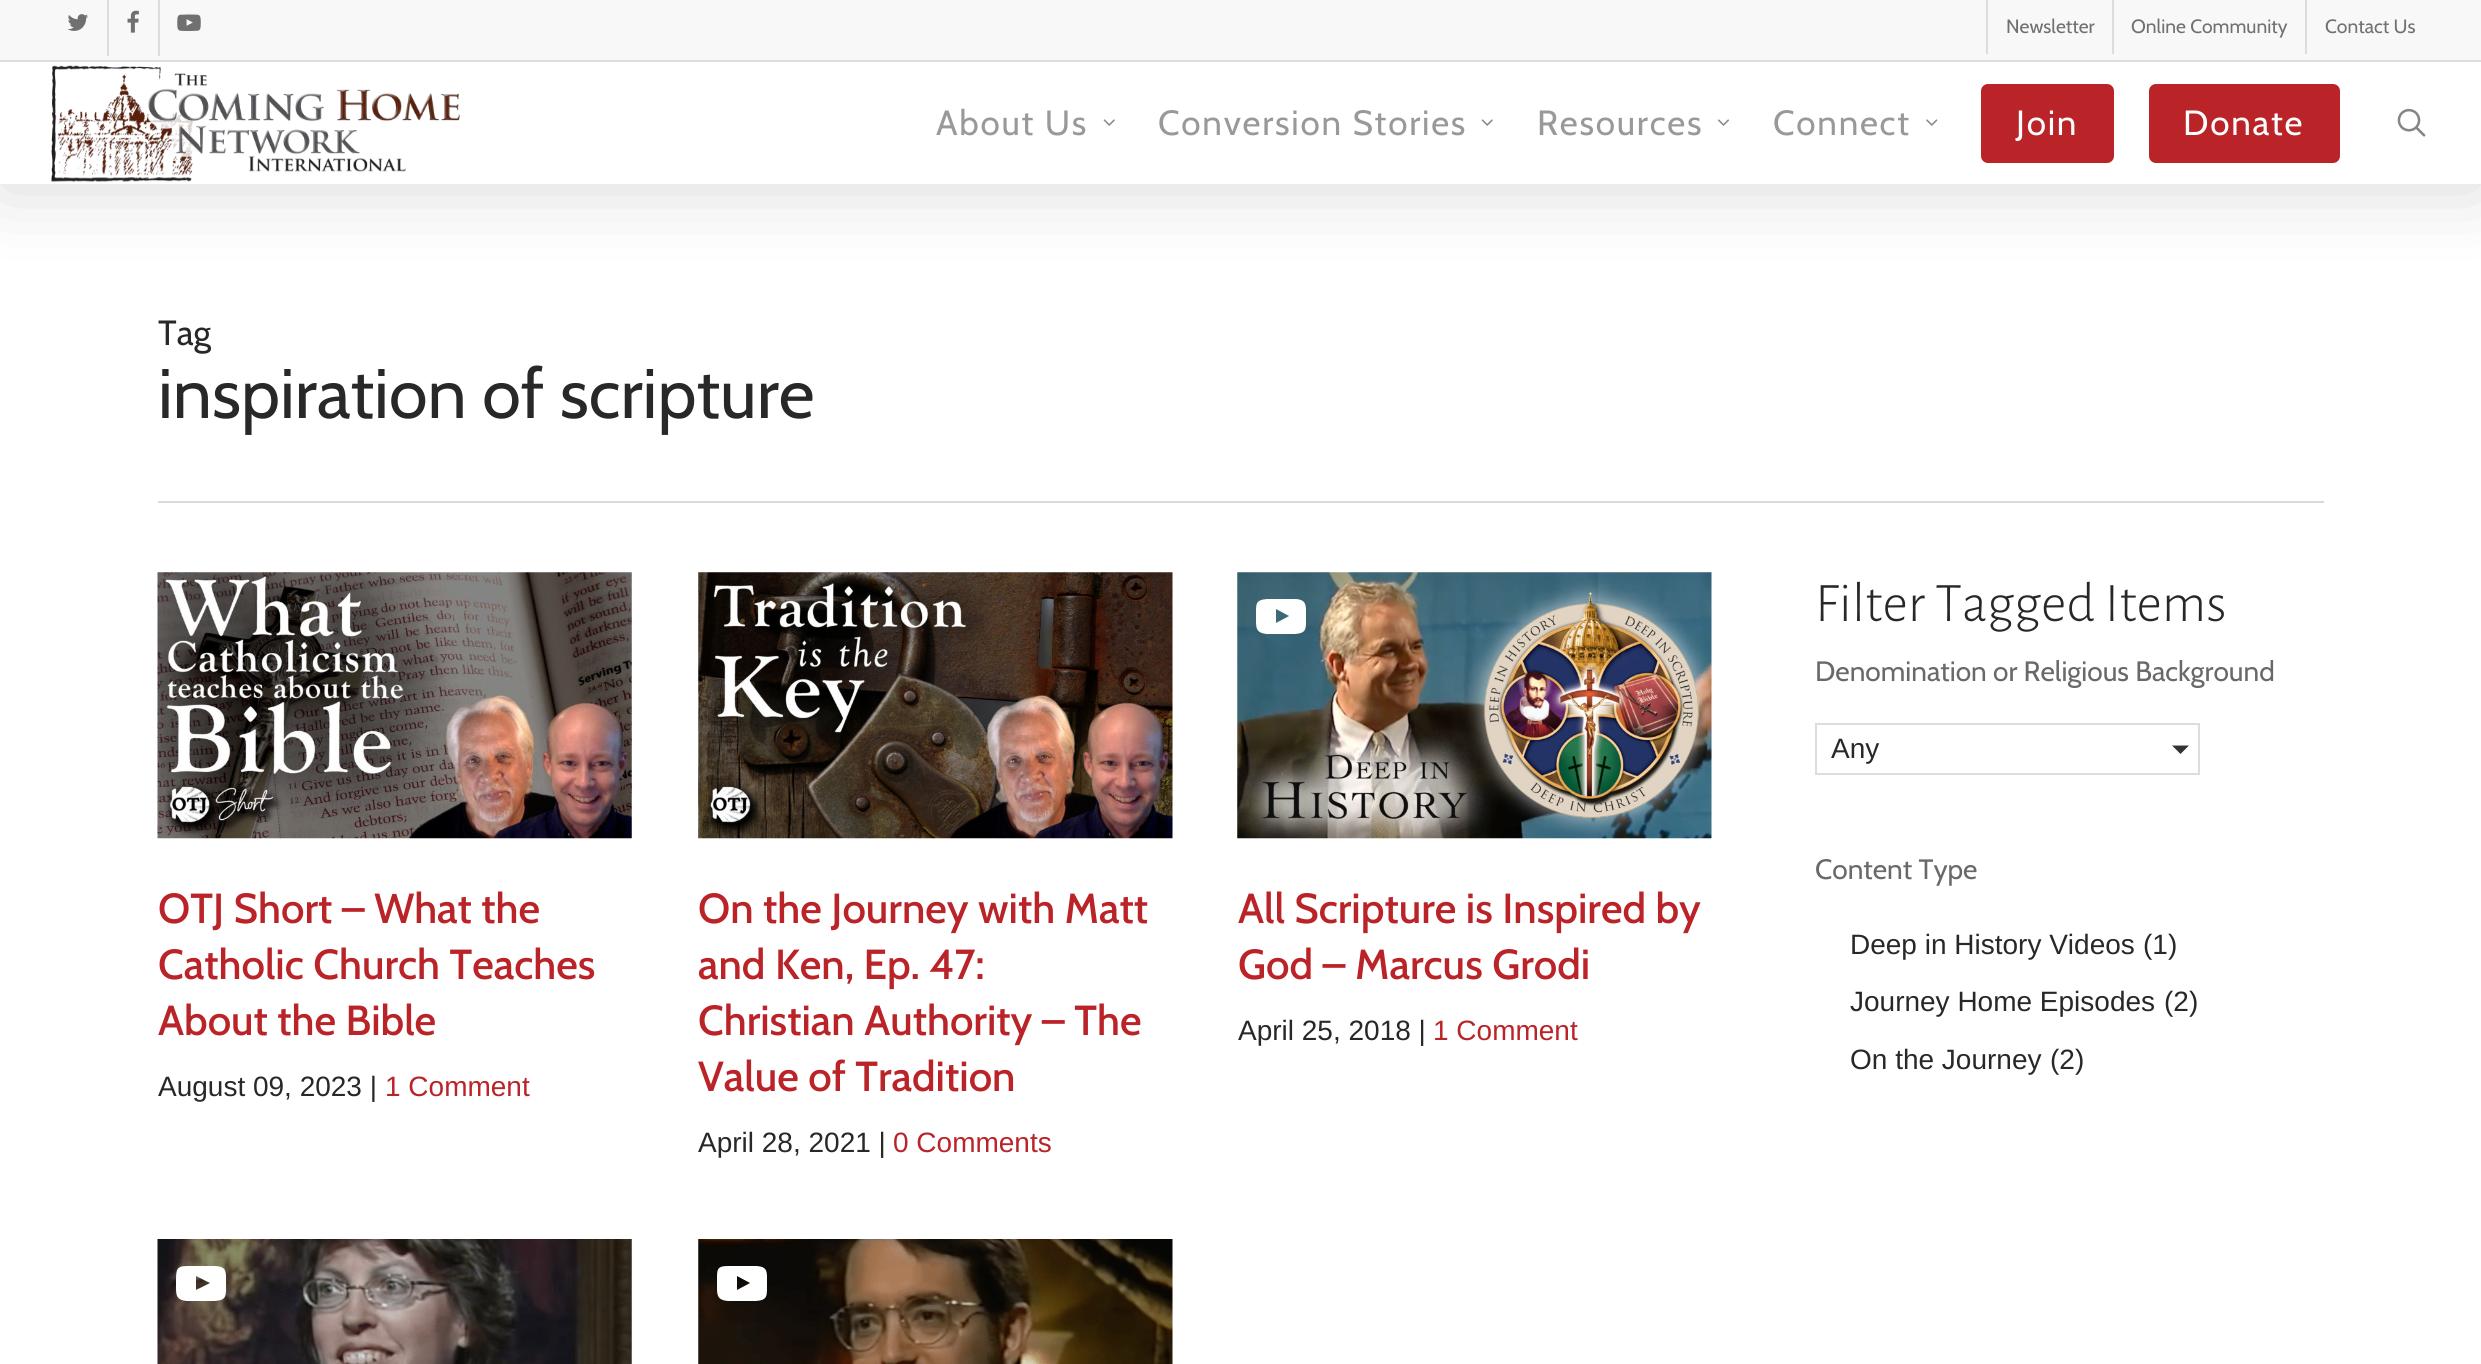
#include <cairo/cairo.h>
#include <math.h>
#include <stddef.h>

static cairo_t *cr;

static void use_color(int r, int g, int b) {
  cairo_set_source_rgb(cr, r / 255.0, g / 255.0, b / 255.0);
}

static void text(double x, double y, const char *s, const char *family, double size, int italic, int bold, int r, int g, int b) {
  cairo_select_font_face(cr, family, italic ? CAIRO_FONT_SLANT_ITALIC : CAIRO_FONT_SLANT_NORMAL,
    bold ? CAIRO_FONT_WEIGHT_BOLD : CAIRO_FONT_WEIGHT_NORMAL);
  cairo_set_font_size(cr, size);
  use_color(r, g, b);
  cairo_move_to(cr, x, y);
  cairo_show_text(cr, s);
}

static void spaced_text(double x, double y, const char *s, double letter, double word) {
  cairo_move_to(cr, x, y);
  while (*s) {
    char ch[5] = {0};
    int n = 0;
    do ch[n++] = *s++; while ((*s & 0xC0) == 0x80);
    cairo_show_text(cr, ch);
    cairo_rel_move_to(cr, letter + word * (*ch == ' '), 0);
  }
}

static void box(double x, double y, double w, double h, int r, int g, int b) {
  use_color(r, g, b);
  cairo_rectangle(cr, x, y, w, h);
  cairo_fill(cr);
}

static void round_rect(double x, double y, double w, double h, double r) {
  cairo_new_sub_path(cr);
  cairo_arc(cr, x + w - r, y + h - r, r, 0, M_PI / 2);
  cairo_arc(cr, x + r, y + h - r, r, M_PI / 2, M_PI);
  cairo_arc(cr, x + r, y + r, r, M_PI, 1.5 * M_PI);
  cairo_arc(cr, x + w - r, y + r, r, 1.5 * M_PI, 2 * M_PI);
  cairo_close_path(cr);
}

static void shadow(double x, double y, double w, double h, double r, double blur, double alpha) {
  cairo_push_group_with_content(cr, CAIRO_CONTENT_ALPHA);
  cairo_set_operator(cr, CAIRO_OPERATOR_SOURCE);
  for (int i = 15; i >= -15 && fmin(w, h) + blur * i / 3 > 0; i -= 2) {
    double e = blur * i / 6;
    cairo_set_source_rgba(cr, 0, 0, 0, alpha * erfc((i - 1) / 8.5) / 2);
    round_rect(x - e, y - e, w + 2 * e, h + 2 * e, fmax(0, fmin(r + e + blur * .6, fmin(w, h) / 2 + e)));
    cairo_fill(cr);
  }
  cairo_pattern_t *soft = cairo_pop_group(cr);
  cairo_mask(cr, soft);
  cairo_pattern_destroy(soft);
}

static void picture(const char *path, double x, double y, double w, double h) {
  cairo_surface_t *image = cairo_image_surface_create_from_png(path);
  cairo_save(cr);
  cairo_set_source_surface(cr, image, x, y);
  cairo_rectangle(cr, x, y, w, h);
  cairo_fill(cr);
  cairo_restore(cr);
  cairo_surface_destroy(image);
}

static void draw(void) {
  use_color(255, 255, 255);
  cairo_paint(cr);
  use_color(0, 0, 0);
  shadow(0, 5, 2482, 184, 0, 39.5, 0.15);
  box(0, 62, 2481, 122, 255, 255, 255);
  box(0, 0, 2481, 60, 248, 248, 248);
  box(0, 60, 2481, 2, 221, 221, 221);
  picture("img_01.png", 67, 14, 21, 17);
  box(107, 0, 2, 56, 221, 221, 221);
  picture("img_02.png", 127, 10, 12, 23);
  box(158, 0, 2, 56, 221, 221, 221);
  picture("img_03.png", 177, 14, 24, 17);
  box(1986, 0, 2, 54, 221, 221, 221);
  box(2112, 0, 2, 54, 221, 221, 221);
  box(2305, 0, 2, 54, 221, 221, 221);
  picture("img_04.png", 51, 65, 409, 117);
  picture("img_05.png", 1103, 119, 12, 7);
  picture("img_05.png", 1481, 119, 12, 7);
  picture("img_06.png", 1718, 119, 12, 7);
  picture("img_07.png", 1926, 119, 12, 7);
  use_color(186, 35, 40);
  round_rect(1981, 84, 133, 79, 7);
  cairo_fill(cr);
  round_rect(2149, 84, 191, 79, 7);
  cairo_fill(cr);
  picture("img_08.png", 2397, 108, 29, 29);
  box(158, 501, 2166, 2, 217, 217, 217);
  picture("img_09.png", 157, 572, 475, 267);
  picture("img_10.png", 698, 572, 475, 267);
  picture("img_11.png", 1237, 572, 475, 267);
  use_color(255, 255, 255);
  cairo_new_path(cr);
  cairo_move_to(cr, 1276, 623);
  cairo_line_to(cr, 1289, 616);
  cairo_line_to(cr, 1276, 609);
  cairo_close_path(cr);
  cairo_move_to(cr, 1281, 599);
  cairo_line_to(cr, 1296, 599);
  cairo_curve_to(cr, 1307, 600, 1306, 606, 1306, 616);
  cairo_curve_to(cr, 1306, 629, 1307, 633, 1295, 634);
  cairo_line_to(cr, 1267, 634);
  cairo_curve_to(cr, 1255, 633, 1256, 627, 1256, 616);
  cairo_curve_to(cr, 1256, 604, 1255, 600, 1267, 599);
  cairo_close_path(cr);
  cairo_fill(cr);
  picture("img_12.png", 157, 1239, 475, 125);
  cairo_new_path(cr);
  cairo_move_to(cr, 196, 1290);
  cairo_line_to(cr, 210, 1283);
  cairo_line_to(cr, 196, 1276);
  cairo_close_path(cr);
  cairo_move_to(cr, 201, 1266);
  cairo_line_to(cr, 216, 1266);
  cairo_curve_to(cr, 227, 1267, 226, 1272, 226, 1283);
  cairo_curve_to(cr, 226, 1296, 227, 1300, 215, 1301);
  cairo_line_to(cr, 187, 1301);
  cairo_curve_to(cr, 175, 1300, 176, 1294, 176, 1283);
  cairo_curve_to(cr, 176, 1270, 176, 1266, 187, 1266);
  cairo_close_path(cr);
  cairo_fill(cr);
  picture("img_13.png", 698, 1239, 475, 125);
  cairo_new_path(cr);
  cairo_move_to(cr, 737, 1290);
  cairo_line_to(cr, 750, 1283);
  cairo_line_to(cr, 737, 1276);
  cairo_close_path(cr);
  cairo_move_to(cr, 742, 1266);
  cairo_line_to(cr, 757, 1266);
  cairo_curve_to(cr, 768, 1267, 767, 1272, 767, 1283);
  cairo_curve_to(cr, 767, 1296, 768, 1300, 756, 1301);
  cairo_line_to(cr, 728, 1301);
  cairo_curve_to(cr, 716, 1300, 717, 1294, 717, 1283);
  cairo_curve_to(cr, 717, 1270, 716, 1266, 728, 1266);
  cairo_close_path(cr);
  cairo_fill(cr);
  cairo_rectangle(cr, 1816, 724, 383, 50);
  use_color(221, 221, 221);
  cairo_stroke(cr);
  use_color(51, 51, 51);
  cairo_new_path(cr);
  cairo_move_to(cr, 2172, 745.5);
  cairo_line_to(cr, 2189, 745.5);
  cairo_line_to(cr, 2180.5, 754);
  cairo_close_path(cr);
  cairo_fill(cr);
  text(2006, 33, "Newsletter", "Cabin", 19.25, 0, 0, 112, 112, 112);
  text(2131, 33, "Online Community", "Cabin", 19.25, 0, 0, 112, 112, 112);
  text(2325, 33, "Contact Us", "Cabin", 19.25, 0, 0, 112, 112, 112);
  cairo_set_font_size(cr, 35);
  use_color(153, 153, 153);
  spaced_text(936, 135, "About Us", 1.75, 0);
  spaced_text(1158, 135, "Conversion Stories", 1.75, 0);
  spaced_text(1537, 135, "Resources", 1.75, 0);
  spaced_text(1773, 135, "Connect", 1.75, 0);
  use_color(255, 255, 255);
  spaced_text(2016, 135, "Join", 1.75, 0);
  spaced_text(2183, 135, "Donate", 1.75, 0);
  text(158, 345, "Tag", "Cabin", 35, 0, 0, 40, 40, 40);
  text(158, 418, "inspiration of scripture", "Cabin", 70, 0, 0, 40, 40, 40);
  text(158, 923, "OTJ Short – What the", "Cabin Medium", 42, 0, 0, 186, 35, 40);
  text(158, 979, "Catholic Church Teaches", "Cabin Medium", 42, 0, 0, 186, 35, 40);
  text(158, 1035, "About the Bible", "Cabin Medium", 42, 0, 0, 186, 35, 40);
  text(158, 1096, "August 09, 2023 |", "Liberation Sans", 28, 0, 0, 40, 40, 40);
  text(385, 1096, "1 Comment", "Liberation Sans", 28, 0, 0, 186, 35, 40);
  text(698, 923, "On the Journey with Matt", "Cabin Medium", 42, 0, 0, 186, 35, 40);
  text(698, 979, "and Ken, Ep. 47:", "Cabin Medium", 42, 0, 0, 186, 35, 40);
  text(698, 1035, "Christian Authority – The", "Cabin Medium", 42, 0, 0, 186, 35, 40);
  text(698, 1091, "Value of Tradition", "Cabin Medium", 42, 0, 0, 186, 35, 40);
  text(698, 1152, "April 28, 2021 |", "Liberation Sans", 28, 0, 0, 40, 40, 40);
  text(893, 1152, "0 Comments", "Liberation Sans", 28, 0, 0, 186, 35, 40);
  text(1238, 923, "All Scripture is Inspired by", "Cabin Medium", 42, 0, 0, 186, 35, 40);
  text(1238, 979, "God – Marcus Grodi", "Cabin Medium", 42, 0, 0, 186, 35, 40);
  text(1238, 1040, "April 25, 2018 |", "Liberation Sans", 28, 0, 0, 40, 40, 40);
  text(1433, 1040, "1 Comment", "Liberation Sans", 28, 0, 0, 186, 35, 40);
  text(1815, 621, "Filter Tagged Items", "Alegreya Sans Light", 56, 0, 0, 40, 40, 40);
  text(1815, 681, "Denomination or Religious Background", "Cabin", 28, 0, 0, 105, 105, 105);
  text(1831, 758, "Any", "Liberation Sans", 28, 0, 0, 40, 40, 40);
  text(1815, 879, "Content Type", "Cabin", 28, 0, 0, 105, 105, 105);
  text(1850, 954, "Deep in History Videos", "Liberation Sans", 28, 0, 0, 40, 40, 40);
  text(2143, 954, "(1)", "Liberation Sans", 28, 0, 0, 40, 40, 40);
  text(1850, 1011, "Journey Home Episodes", "Liberation Sans", 28, 0, 0, 40, 40, 40);
  text(2164, 1011, "(2)", "Liberation Sans", 28, 0, 0, 40, 40, 40);
  text(1850, 1069, "On the Journey", "Liberation Sans", 28, 0, 0, 40, 40, 40);
  text(2050, 1069, "(2)", "Liberation Sans", 28, 0, 0, 40, 40, 40);
}

int main(void) {
  cairo_surface_t *surface = cairo_image_surface_create(CAIRO_FORMAT_RGB24, 2481, 1364);
  cr = cairo_create(surface);
  cairo_font_options_t *options = cairo_font_options_create();
  cairo_font_options_set_hint_metrics(options, CAIRO_HINT_METRICS_OFF);
  cairo_font_options_set_hint_style(options, CAIRO_HINT_STYLE_NONE);
  cairo_set_font_options(cr, options);
  cairo_set_miter_limit(cr, 4);
  draw();
  cairo_surface_write_to_png(surface, "out.png");
  cairo_font_options_destroy(options);
  cairo_destroy(cr);
  cairo_surface_destroy(surface);
  return 0;
}
